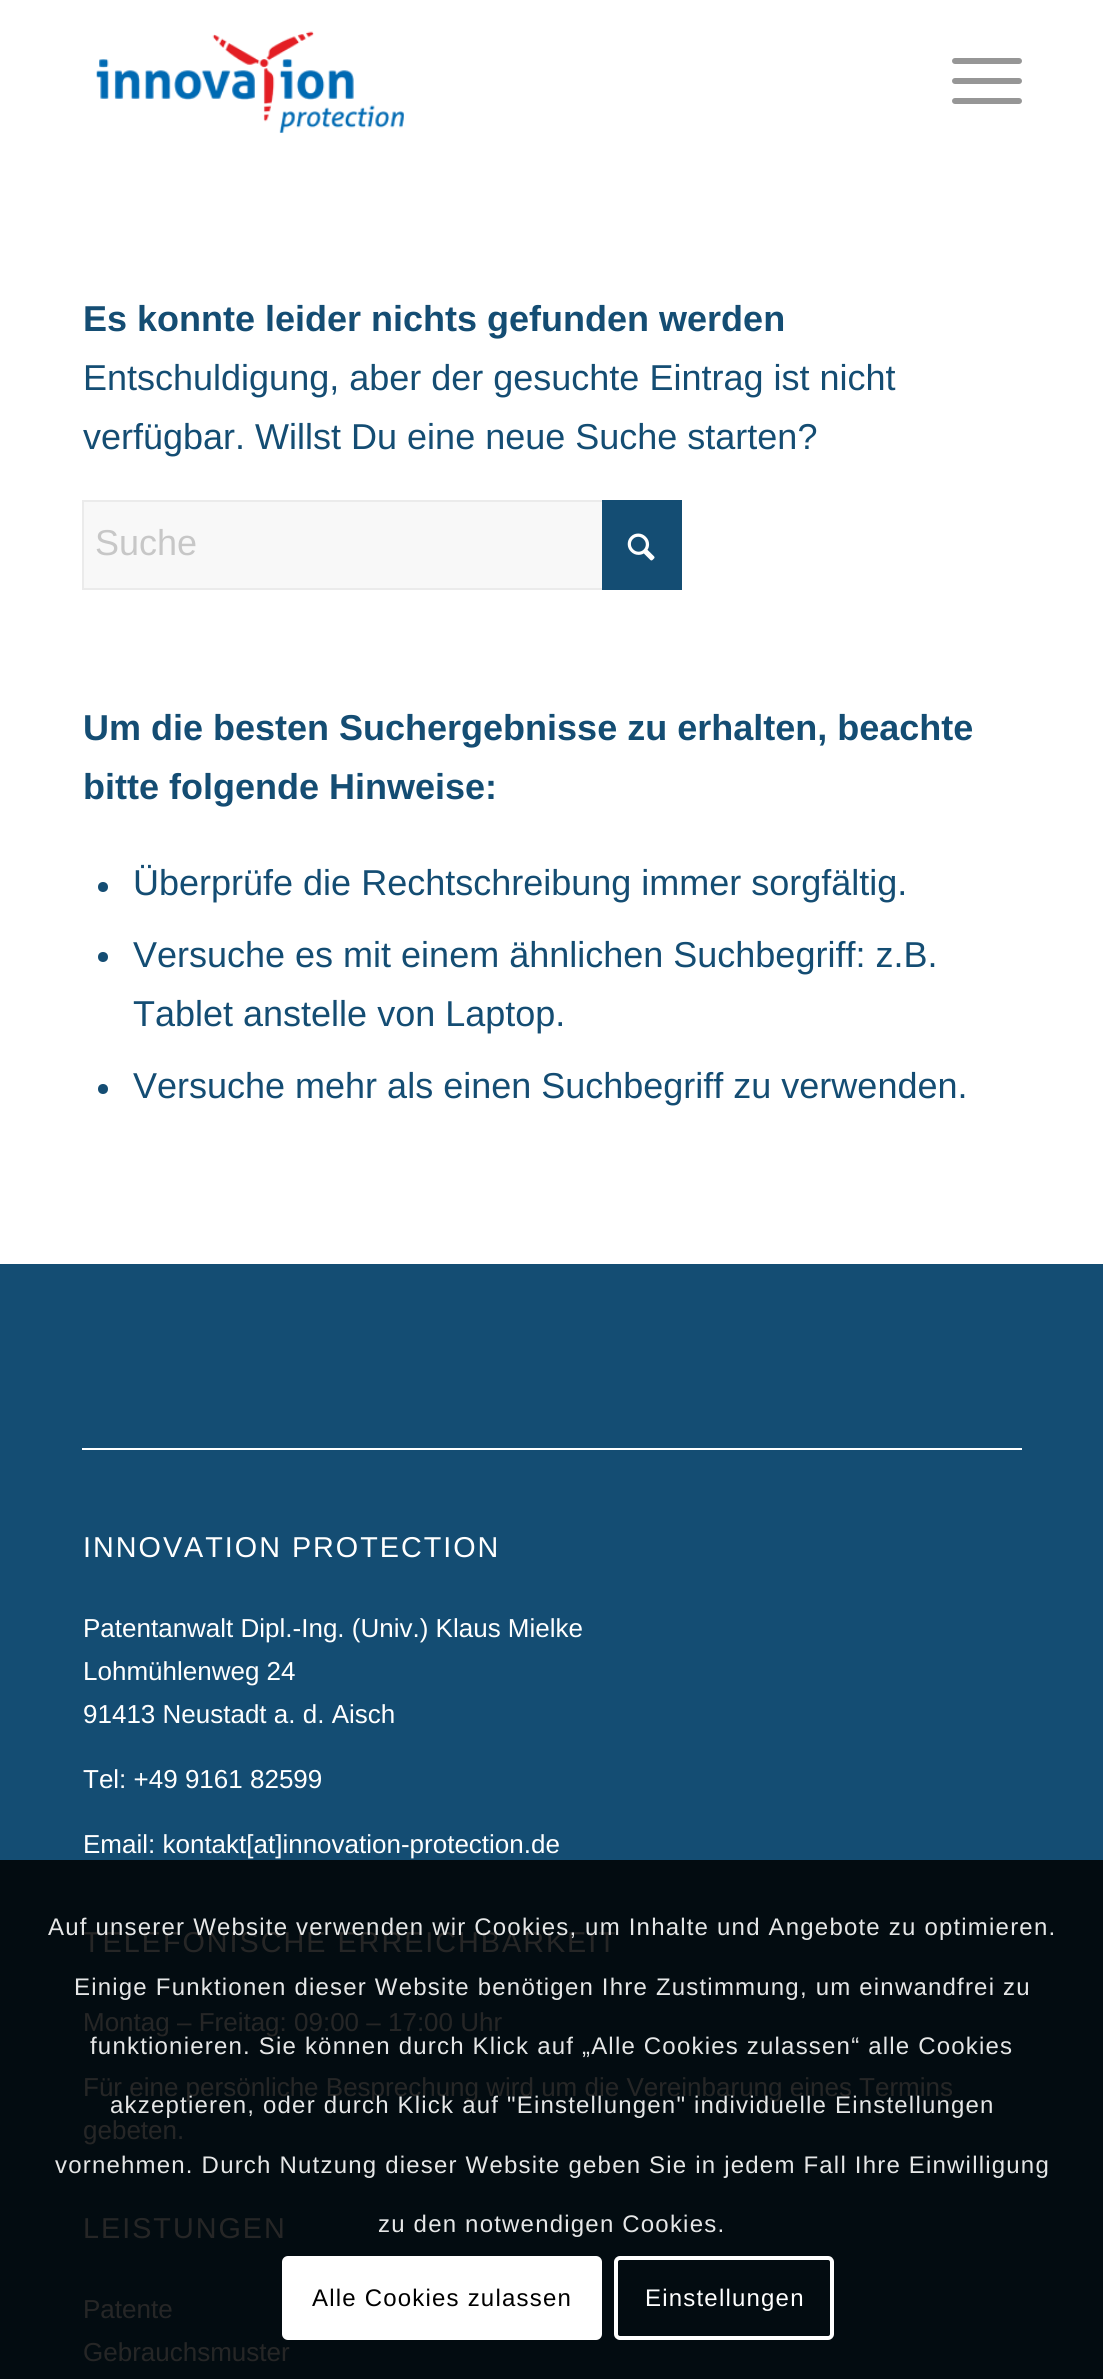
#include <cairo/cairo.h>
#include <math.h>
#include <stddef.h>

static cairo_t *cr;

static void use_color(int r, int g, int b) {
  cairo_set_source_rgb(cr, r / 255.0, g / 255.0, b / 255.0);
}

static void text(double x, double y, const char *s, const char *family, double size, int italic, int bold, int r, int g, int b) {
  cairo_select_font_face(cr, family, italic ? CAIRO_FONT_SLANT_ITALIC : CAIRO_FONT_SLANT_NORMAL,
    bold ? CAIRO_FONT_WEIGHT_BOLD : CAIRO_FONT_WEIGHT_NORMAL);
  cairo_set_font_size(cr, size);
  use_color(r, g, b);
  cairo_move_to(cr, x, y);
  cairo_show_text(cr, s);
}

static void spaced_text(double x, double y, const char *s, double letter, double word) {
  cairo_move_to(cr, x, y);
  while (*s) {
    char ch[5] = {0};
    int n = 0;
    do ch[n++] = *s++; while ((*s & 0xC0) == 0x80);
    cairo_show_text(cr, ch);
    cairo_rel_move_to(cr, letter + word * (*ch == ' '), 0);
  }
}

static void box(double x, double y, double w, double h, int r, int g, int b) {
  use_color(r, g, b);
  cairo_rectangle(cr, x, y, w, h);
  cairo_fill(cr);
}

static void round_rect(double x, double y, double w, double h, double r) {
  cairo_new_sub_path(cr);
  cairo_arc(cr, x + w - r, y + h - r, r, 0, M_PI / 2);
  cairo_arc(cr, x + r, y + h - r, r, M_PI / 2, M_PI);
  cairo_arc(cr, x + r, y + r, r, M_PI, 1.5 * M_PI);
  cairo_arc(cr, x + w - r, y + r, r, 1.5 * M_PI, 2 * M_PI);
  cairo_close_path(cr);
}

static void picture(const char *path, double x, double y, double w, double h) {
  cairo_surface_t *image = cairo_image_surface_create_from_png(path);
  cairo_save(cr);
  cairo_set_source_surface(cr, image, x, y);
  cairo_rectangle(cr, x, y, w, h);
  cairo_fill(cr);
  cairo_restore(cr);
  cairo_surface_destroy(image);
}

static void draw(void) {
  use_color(255, 255, 255);
  cairo_paint(cr);
  picture("img_01.png", 96, 31, 308, 102);
  use_color(150, 150, 150);
  round_rect(952, 78, 70, 6, 3);
  cairo_fill(cr);
  round_rect(952, 58, 70, 6, 3);
  cairo_fill(cr);
  round_rect(952, 98, 70, 6, 3);
  cairo_fill(cr);
  box(84, 502, 518, 86, 248, 248, 248);
  cairo_rectangle(cr, 83, 501, 598, 88);
  use_color(235, 235, 235);
  cairo_stroke(cr);
  box(602, 500, 80, 90, 20, 77, 115);
  picture("img_02.png", 627, 533, 28, 28);
  cairo_arc(cr, 103, 887, 5, 0, 2 * M_PI);
  cairo_fill(cr);
  cairo_arc(cr, 103, 957, 5, 0, 2 * M_PI);
  cairo_fill(cr);
  cairo_arc(cr, 103, 1089, 5, 0, 2 * M_PI);
  cairo_fill(cr);
  box(0, 1264, 1103, 596, 20, 77, 115);
  box(0, 1860, 1103, 519, 3, 12, 17);
  box(82, 1448, 940, 2, 255, 255, 255);
  round_rect(282, 2256, 320, 84, 6);
  cairo_fill(cr);
  round_rect(616, 2258, 216, 80, 4);
  cairo_set_line_width(cr, 4);
  cairo_stroke(cr);
  text(83, 331, "Es konnte leider nichts gefunden werden", "Liberation Sans", 36, 0, 1, 20, 77, 115);
  text(83, 390, "Entschuldigung, aber der gesuchte Eintrag ist nicht", "Liberation Sans", 36, 0, 0, 20, 77, 115);
  text(83, 449, "verfügbar. Willst Du eine neue Suche starten?", "Liberation Sans", 36, 0, 0, 20, 77, 115);
  text(95, 555, "Suche", "Liberation Sans", 36, 0, 0, 199, 199, 199);
  text(83, 740, "Um die besten Suchergebnisse zu erhalten, beachte", "Liberation Sans", 36, 0, 1, 20, 77, 115);
  text(83, 799, "bitte folgende Hinweise:", "Liberation Sans", 36, 0, 1, 20, 77, 115);
  text(133, 895, "Überprüfe die Rechtschreibung immer sorgfältig.", "Liberation Sans", 36, 0, 0, 20, 77, 115);
  text(133, 967, "Versuche es mit einem ähnlichen Suchbegriff: z.B.", "Liberation Sans", 36, 0, 0, 20, 77, 115);
  text(133, 1026, "Tablet anstelle von Laptop.", "Liberation Sans", 36, 0, 0, 20, 77, 115);
  text(133, 1098, "Versuche mehr als einen Suchbegriff zu verwenden.", "Liberation Sans", 36, 0, 0, 20, 77, 115);
  cairo_set_font_size(cr, 28.75);
  use_color(255, 255, 255);
  spaced_text(83, 1557, "INNOVATION PROTECTION", 2, 0);
  text(83, 1637, "Patentanwalt Dipl.-Ing. (Univ.) Klaus Mielke", "Liberation Sans", 26, 0, 0, 255, 255, 255);
  text(83, 1680, "Lohmühlenweg 24", "Liberation Sans", 26, 0, 0, 255, 255, 255);
  text(83, 1723, "91413 Neustadt a. d. Aisch", "Liberation Sans", 26, 0, 0, 255, 255, 255);
  text(83, 1788, "Tel: +49 9161 82599", "Liberation Sans", 26, 0, 0, 255, 255, 255);
  text(83, 1853, "Email: kontakt[at]innovation-protection.de", "Liberation Sans", 26, 0, 0, 255, 255, 255);
  cairo_set_font_size(cr, 28.75);
  use_color(38, 38, 38);
  spaced_text(83, 1952, "TELEFONISCHE ERREICHBARKEIT", 2, 0);
  text(83, 2031, "Montag – Freitag: 09:00 – 17:00 Uhr", "Liberation Sans", 26, 0, 0, 38, 38, 38);
  text(83, 2096, "Für eine persönliche Besprechung wird um die Vereinbarung eines Termins", "Liberation Sans", 26, 0, 0, 38, 38, 38);
  text(83, 2139, "gebeten.", "Liberation Sans", 26, 0, 0, 38, 38, 38);
  cairo_set_font_size(cr, 28.75);
  spaced_text(83, 2238, "LEISTUNGEN", 2, 0);
  text(83, 2318, "Patente", "Liberation Sans", 26, 0, 0, 38, 38, 38);
  text(83, 2361, "Gebrauchsmuster", "Liberation Sans", 26, 0, 0, 38, 38, 38);
  cairo_set_font_size(cr, 24);
  use_color(230, 231, 231);
  spaced_text(48, 1935, "Auf unserer Website verwenden wir Cookies, um Inhalte und Angebote zu optimieren.", 1.2, 0);
  spaced_text(74, 1995, "Einige Funktionen dieser Website benötigen Ihre Zustimmung, um einwandfrei zu", 1.2, 0);
  spaced_text(90, 2054, "funktionieren. Sie können durch Klick auf „Alle Cookies zulassen“ alle Cookies", 1.2, 0);
  spaced_text(110, 2113, "akzeptieren, oder durch Klick auf \"Einstellungen\" individuelle Einstellungen", 1.2, 0);
  spaced_text(55, 2173, "vornehmen. Durch Nutzung dieser Website geben Sie in jedem Fall Ihre Einwilligung", 1.2, 0);
  spaced_text(378, 2232, "zu den notwendigen Cookies.", 1.2, 0);
  use_color(0, 0, 0);
  spaced_text(312, 2306, "Alle Cookies zulassen", 1.2, 0);
  use_color(255, 255, 255);
  spaced_text(645, 2306, "Einstellungen", 1.2, 0);
}

int main(void) {
  cairo_surface_t *surface = cairo_image_surface_create(CAIRO_FORMAT_RGB24, 1103, 2379);
  cr = cairo_create(surface);
  cairo_font_options_t *options = cairo_font_options_create();
  cairo_font_options_set_hint_metrics(options, CAIRO_HINT_METRICS_OFF);
  cairo_font_options_set_hint_style(options, CAIRO_HINT_STYLE_NONE);
  cairo_set_font_options(cr, options);
  cairo_set_miter_limit(cr, 4);
  draw();
  cairo_surface_write_to_png(surface, "out.png");
  cairo_font_options_destroy(options);
  cairo_destroy(cr);
  cairo_surface_destroy(surface);
  return 0;
}
